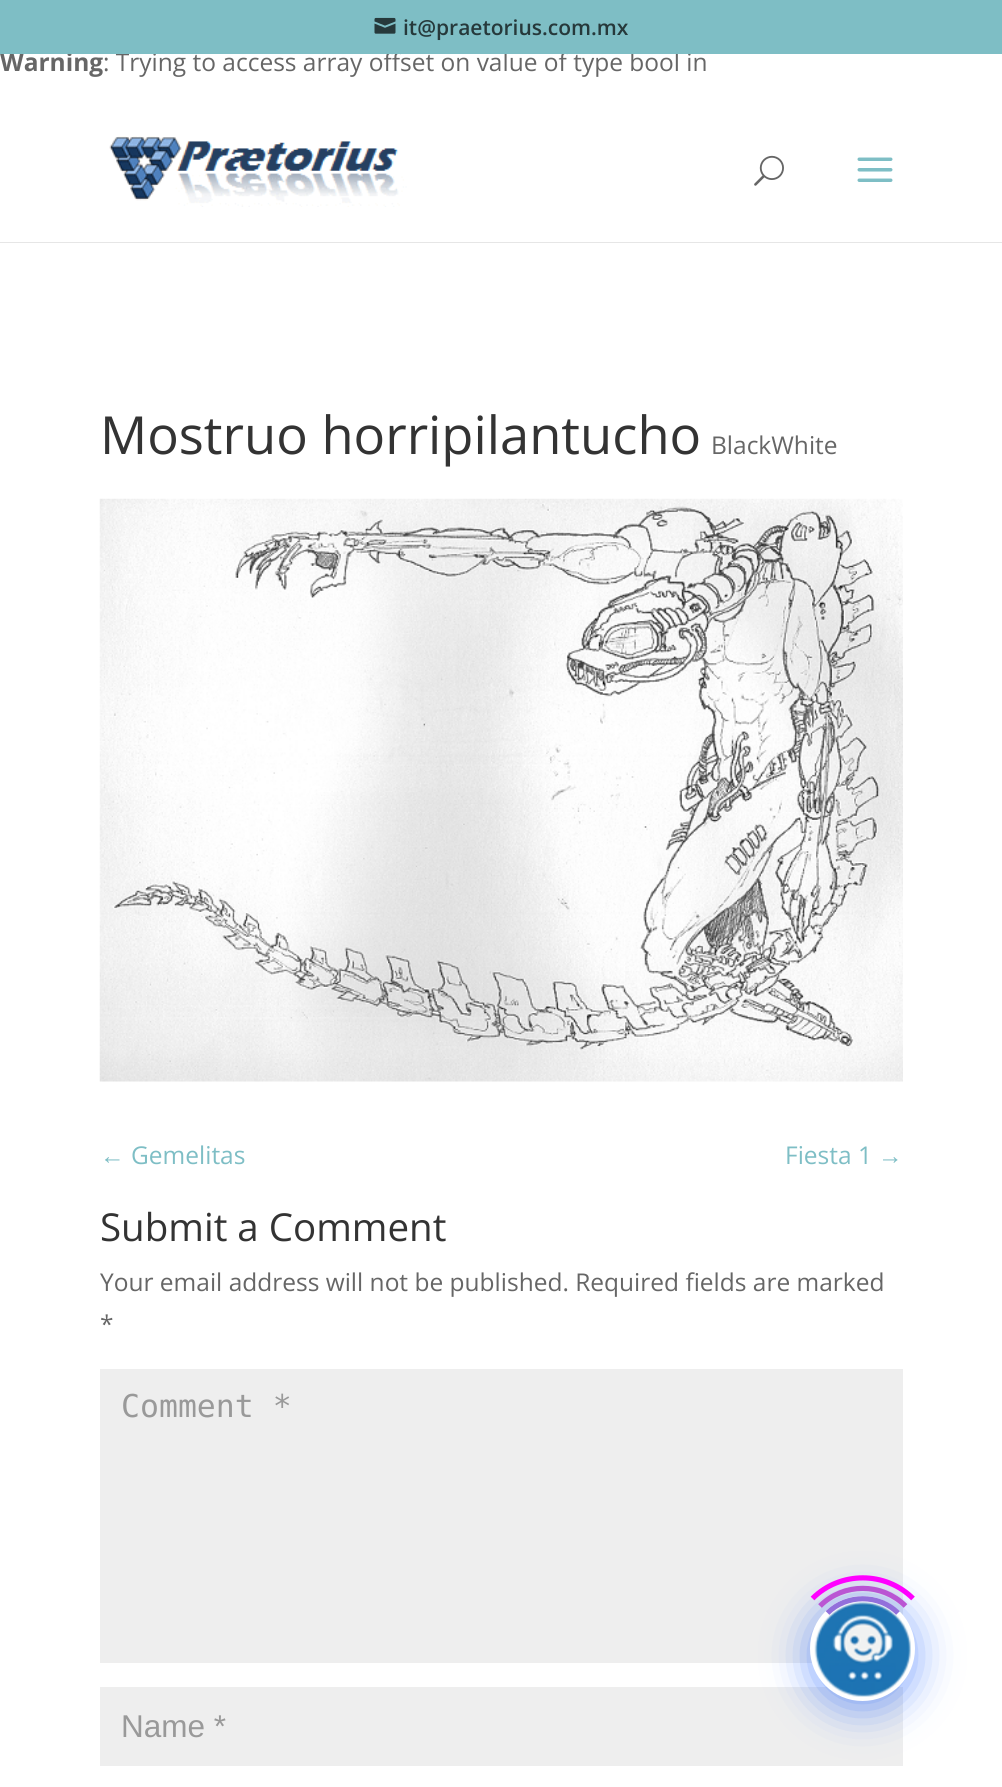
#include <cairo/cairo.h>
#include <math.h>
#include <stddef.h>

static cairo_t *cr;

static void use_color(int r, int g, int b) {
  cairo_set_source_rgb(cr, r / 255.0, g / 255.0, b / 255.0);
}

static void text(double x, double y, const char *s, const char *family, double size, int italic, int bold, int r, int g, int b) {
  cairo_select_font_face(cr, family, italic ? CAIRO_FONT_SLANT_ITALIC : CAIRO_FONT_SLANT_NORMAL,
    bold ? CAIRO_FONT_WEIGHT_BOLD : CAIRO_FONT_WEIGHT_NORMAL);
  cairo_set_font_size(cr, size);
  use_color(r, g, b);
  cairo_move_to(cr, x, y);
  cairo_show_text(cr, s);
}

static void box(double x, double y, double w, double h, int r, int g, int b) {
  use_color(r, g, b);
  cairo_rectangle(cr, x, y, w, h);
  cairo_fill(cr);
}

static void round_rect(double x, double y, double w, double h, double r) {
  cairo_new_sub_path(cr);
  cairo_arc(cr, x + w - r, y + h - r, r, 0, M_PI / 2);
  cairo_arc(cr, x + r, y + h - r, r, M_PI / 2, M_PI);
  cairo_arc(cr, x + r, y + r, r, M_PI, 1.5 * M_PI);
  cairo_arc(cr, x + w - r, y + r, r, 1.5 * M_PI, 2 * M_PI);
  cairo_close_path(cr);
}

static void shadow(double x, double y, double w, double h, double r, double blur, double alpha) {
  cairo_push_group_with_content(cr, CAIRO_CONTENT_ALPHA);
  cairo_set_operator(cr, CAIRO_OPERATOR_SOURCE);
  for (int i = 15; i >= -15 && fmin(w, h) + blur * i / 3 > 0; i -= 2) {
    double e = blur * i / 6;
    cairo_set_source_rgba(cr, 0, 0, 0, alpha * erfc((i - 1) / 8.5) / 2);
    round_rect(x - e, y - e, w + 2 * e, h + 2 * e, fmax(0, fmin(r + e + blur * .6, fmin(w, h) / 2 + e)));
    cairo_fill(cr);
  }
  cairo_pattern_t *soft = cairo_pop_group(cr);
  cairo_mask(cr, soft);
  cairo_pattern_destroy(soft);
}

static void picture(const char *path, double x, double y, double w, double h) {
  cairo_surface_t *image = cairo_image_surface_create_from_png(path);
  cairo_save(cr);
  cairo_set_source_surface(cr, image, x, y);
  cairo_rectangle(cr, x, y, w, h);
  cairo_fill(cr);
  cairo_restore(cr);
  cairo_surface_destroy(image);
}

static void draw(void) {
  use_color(255, 255, 255);
  cairo_paint(cr);
  use_color(230, 230, 230);
  cairo_new_path(cr);
  cairo_move_to(cr, 0, 242);
  cairo_line_to(cr, 0, 243);
  cairo_line_to(cr, 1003, 243);
  cairo_line_to(cr, 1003, 103);
  cairo_line_to(cr, 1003, 242);
  cairo_close_path(cr);
  cairo_fill(cr);
  picture("img_02.png", 109, 136, 298, 71);
  picture("img_03.png", 754, 155, 30, 31);
  picture("img_04.png", 857, 157, 36, 25);
  picture("img_05.png", 99, 498, 804, 584);
  box(100, 1369, 803, 294, 238, 238, 238);
  box(100, 1687, 803, 79, 238, 238, 238);
  use_color(0, 77, 255);
  shadow(810, 1603, 105, 105, 52.5, 21, 0.5);
  use_color(255, 255, 255);
  cairo_arc(cr, 862.5, 1648.5, 52.5, 0, 2 * M_PI);
  cairo_fill(cr);
  picture("img_06.png", 814, 1601, 97, 96);
  cairo_new_path(cr);
  cairo_move_to(cr, 827.5, 1613);
  cairo_curve_to(cr, 846.5, 1594, 879, 1594, 898, 1613);
  use_color(147, 112, 219);
  cairo_set_line_width(cr, 5.2);
  cairo_stroke(cr);
  cairo_new_path(cr);
  cairo_move_to(cr, 820, 1606);
  cairo_curve_to(cr, 843.5, 1582.5, 882, 1582.5, 905.5, 1606);
  use_color(186, 85, 211);
  cairo_stroke(cr);
  cairo_new_path(cr);
  cairo_move_to(cr, 812.5, 1598.5);
  cairo_curve_to(cr, 840, 1571, 885.5, 1571, 913, 1598.5);
  use_color(255, 0, 255);
  cairo_stroke(cr);
  text(0, 71, "Warning", "Open Sans", 24.5, 0, 1, 102, 102, 102);
  text(100, 454, "Mostruo horripilantucho", "Open Sans", 52.5, 0, 0, 51, 51, 51);
  text(711, 454, "BlackWhite", "Open Sans", 24.5, 0, 0, 102, 102, 102);
  text(100, 1164, "←", "Liberation Sans", 24.5, 0, 0, 126, 190, 197);
  text(131, 1164, "Gemelitas", "Open Sans", 24.5, 0, 0, 126, 190, 197);
  text(785, 1164, "Fiesta 1", "Open Sans", 24.5, 0, 0, 126, 190, 197);
  text(878, 1164, "→", "Liberation Sans", 24.5, 0, 0, 126, 190, 197);
  text(100, 1241, "Submit a Comment", "Open Sans", 38.5, 0, 0, 51, 51, 51);
  text(100, 1291, "Your email address will not be published. Required fields are marked", "Open Sans", 24.5, 0, 0, 102, 102, 102);
  text(100, 1333, "*", "Open Sans", 24.5, 0, 0, 102, 102, 102);
  text(121, 1417, "Comment *", "DejaVu Sans Mono", 31.5, 0, 0, 153, 153, 153);
  text(121, 1737, "Name *", "Liberation Sans", 31.5, 0, 0, 153, 153, 153);
  text(103, 71, ": Trying to access array offset on value of type bool in", "Open Sans", 24.5, 0, 0, 102, 102, 102);
  box(0, 0, 1002, 54, 126, 190, 197);
  text(403, 35, "it@praetorius.com.mx", "Open Sans SemiBold", 21, 0, 0, 38, 57, 59);
  picture("img_01.png", 374, 17, 22, 17);
}

int main(void) {
  cairo_surface_t *surface = cairo_image_surface_create(CAIRO_FORMAT_RGB24, 1002, 1787);
  cr = cairo_create(surface);
  cairo_font_options_t *options = cairo_font_options_create();
  cairo_font_options_set_hint_metrics(options, CAIRO_HINT_METRICS_OFF);
  cairo_font_options_set_hint_style(options, CAIRO_HINT_STYLE_NONE);
  cairo_set_font_options(cr, options);
  cairo_set_miter_limit(cr, 4);
  draw();
  cairo_surface_write_to_png(surface, "out.png");
  cairo_font_options_destroy(options);
  cairo_destroy(cr);
  cairo_surface_destroy(surface);
  return 0;
}
